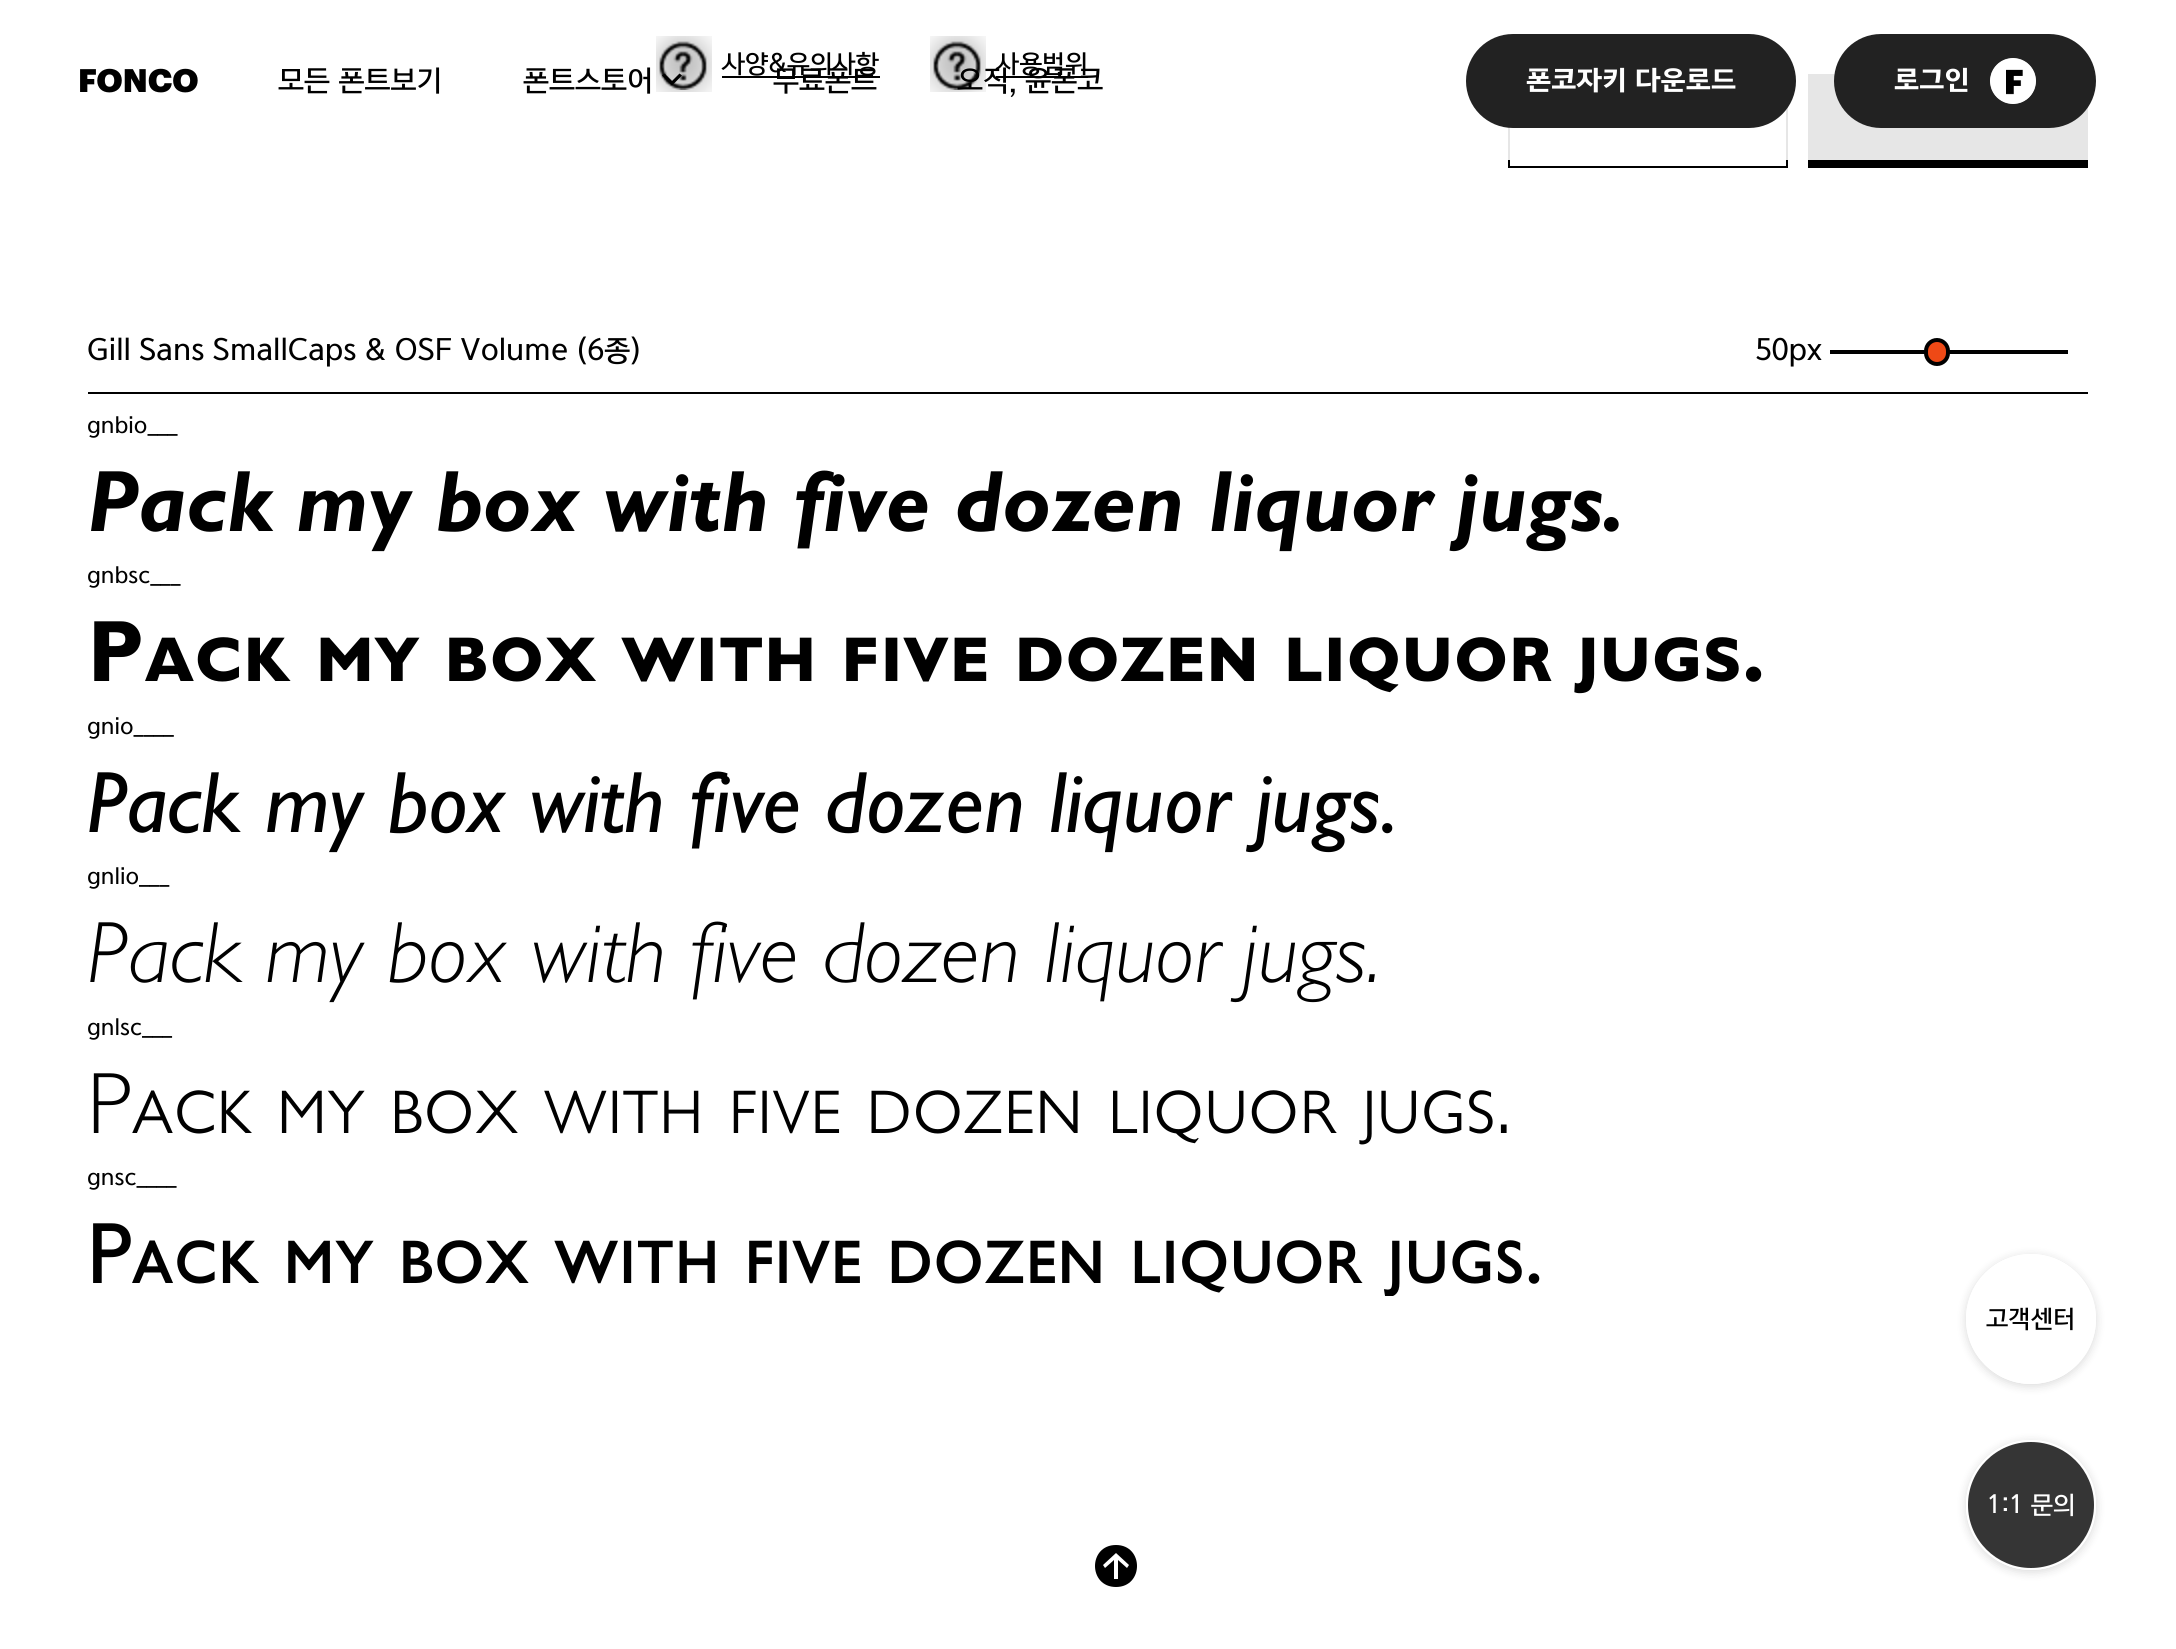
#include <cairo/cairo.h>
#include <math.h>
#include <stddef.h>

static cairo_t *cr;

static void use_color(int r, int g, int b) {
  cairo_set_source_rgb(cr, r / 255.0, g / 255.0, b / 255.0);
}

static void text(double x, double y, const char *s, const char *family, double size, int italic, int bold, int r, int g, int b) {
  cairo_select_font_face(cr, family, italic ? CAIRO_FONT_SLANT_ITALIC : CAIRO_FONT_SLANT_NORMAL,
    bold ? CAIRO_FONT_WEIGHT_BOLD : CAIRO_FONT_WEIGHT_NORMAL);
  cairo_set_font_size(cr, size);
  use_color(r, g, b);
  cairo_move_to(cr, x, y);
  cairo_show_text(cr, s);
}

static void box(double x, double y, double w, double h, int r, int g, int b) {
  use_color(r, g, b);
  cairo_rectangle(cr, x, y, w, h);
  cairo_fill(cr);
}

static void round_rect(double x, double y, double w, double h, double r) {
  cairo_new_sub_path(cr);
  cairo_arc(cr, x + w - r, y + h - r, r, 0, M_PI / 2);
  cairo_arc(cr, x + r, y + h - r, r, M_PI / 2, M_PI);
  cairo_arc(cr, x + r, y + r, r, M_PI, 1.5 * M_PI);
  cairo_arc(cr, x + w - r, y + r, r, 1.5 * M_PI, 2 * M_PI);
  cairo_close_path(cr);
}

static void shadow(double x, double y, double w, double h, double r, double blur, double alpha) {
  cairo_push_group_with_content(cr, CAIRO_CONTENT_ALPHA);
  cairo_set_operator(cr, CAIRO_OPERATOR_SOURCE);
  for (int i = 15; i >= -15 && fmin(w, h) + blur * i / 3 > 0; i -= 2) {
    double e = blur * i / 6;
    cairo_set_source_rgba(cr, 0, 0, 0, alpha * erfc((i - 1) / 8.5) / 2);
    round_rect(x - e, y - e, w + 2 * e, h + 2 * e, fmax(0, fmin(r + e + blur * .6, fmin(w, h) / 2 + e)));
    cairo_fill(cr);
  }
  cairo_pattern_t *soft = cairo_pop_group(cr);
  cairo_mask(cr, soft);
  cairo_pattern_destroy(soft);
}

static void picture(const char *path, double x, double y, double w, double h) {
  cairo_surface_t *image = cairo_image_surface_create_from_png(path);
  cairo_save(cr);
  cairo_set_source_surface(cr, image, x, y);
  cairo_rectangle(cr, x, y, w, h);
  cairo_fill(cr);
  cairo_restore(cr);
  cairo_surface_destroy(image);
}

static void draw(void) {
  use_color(255, 255, 255);
  cairo_paint(cr);
  use_color(0, 0, 0);
  cairo_new_path(cr);
  cairo_move_to(cr, 672, 85.5);
  cairo_line_to(cr, 662, 75.5);
  cairo_line_to(cr, 664.5, 73.5);
  cairo_line_to(cr, 672, 81);
  cairo_line_to(cr, 679.5, 73.5);
  cairo_line_to(cr, 682, 75.5);
  cairo_close_path(cr);
  cairo_fill(cr);
  picture("img_01.png", 656, 36, 56, 56);
  box(722, 76, 158, 2, 0, 0, 0);
  box(996, 76, 92, 2, 0, 0, 0);
  cairo_rectangle(cr, 1509, 75, 278, 92);
  cairo_stroke(cr);
  box(1808, 74, 280, 94, 0, 0, 0);
  box(88, 392, 2000, 2, 0, 0, 0);
  box(1830, 350, 238, 4, 0, 0, 0);
  use_color(238, 73, 22);
  round_rect(1926, 340, 22, 24, 11);
  cairo_fill_preserve(cr);
  use_color(0, 0, 0);
  cairo_set_line_width(cr, 4);
  cairo_stroke(cr);
  cairo_set_source_rgba(cr, 1, 1, 1, 0.9);
  cairo_rectangle(cr, 1508, 74, 580, 86);
  cairo_fill(cr);
  picture("img_03.png", 80, 68, 118, 25);
  use_color(34, 34, 34);
  round_rect(1466, 34, 330, 94, 47);
  cairo_fill(cr);
  round_rect(1834, 34, 262, 94, 47);
  cairo_fill(cr);
  use_color(217, 217, 217);
  cairo_arc(cr, 2013, 81, 23, 0, 2 * M_PI);
  cairo_fill(cr);
  picture("img_04.png", 1990, 58, 46, 46);
  cairo_save(cr);
  cairo_set_fill_rule(cr, CAIRO_FILL_RULE_EVEN_ODD);
  cairo_new_path(cr);
  cairo_move_to(cr, 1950, 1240);
  cairo_line_to(cr, 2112, 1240);
  cairo_line_to(cr, 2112, 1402);
  cairo_line_to(cr, 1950, 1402);
  cairo_close_path(cr);
  cairo_move_to(cr, 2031, 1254);
  cairo_curve_to(cr, 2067, 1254, 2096, 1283, 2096, 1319);
  cairo_curve_to(cr, 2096, 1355, 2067, 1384, 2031, 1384);
  cairo_curve_to(cr, 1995, 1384, 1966, 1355, 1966, 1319);
  cairo_curve_to(cr, 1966, 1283, 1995, 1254, 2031, 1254);
  cairo_close_path(cr);
  cairo_clip(cr);
  use_color(0, 0, 0);
  shadow(1966, 1256, 130, 130, 65, 5, 0.15);
  cairo_restore(cr);
  cairo_set_source_rgba(cr, 1, 1, 1, 0.79);
  cairo_arc(cr, 2031, 1319, 65, 0, 2 * M_PI);
  cairo_fill(cr);
  cairo_save(cr);
  cairo_set_fill_rule(cr, CAIRO_FILL_RULE_EVEN_ODD);
  cairo_new_path(cr);
  cairo_move_to(cr, 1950, 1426);
  cairo_line_to(cr, 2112, 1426);
  cairo_line_to(cr, 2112, 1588);
  cairo_line_to(cr, 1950, 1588);
  cairo_close_path(cr);
  cairo_move_to(cr, 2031, 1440);
  cairo_curve_to(cr, 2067, 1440, 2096, 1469, 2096, 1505);
  cairo_curve_to(cr, 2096, 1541, 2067, 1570, 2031, 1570);
  cairo_curve_to(cr, 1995, 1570, 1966, 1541, 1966, 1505);
  cairo_curve_to(cr, 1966, 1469, 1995, 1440, 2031, 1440);
  cairo_close_path(cr);
  cairo_clip(cr);
  use_color(0, 0, 0);
  shadow(1966, 1442, 130, 130, 65, 5, 0.15);
  cairo_restore(cr);
  cairo_set_source_rgba(cr, 0, 0, 0, 0.79);
  cairo_arc(cr, 2031, 1505, 64, 0, 2 * M_PI);
  cairo_fill_preserve(cr);
  use_color(255, 255, 255);
  cairo_set_line_width(cr, 2);
  cairo_stroke(cr);
  use_color(0, 0, 0);
  cairo_new_path(cr);
  cairo_move_to(cr, 1116, 1545);
  cairo_curve_to(cr, 1144, 1545, 1144, 1587, 1116, 1587);
  cairo_curve_to(cr, 1088, 1587, 1088, 1545, 1116, 1545);
  cairo_close_path(cr);
  cairo_move_to(cr, 1116, 1553);
  cairo_line_to(cr, 1103, 1565);
  cairo_line_to(cr, 1105, 1568);
  cairo_line_to(cr, 1114, 1560);
  cairo_line_to(cr, 1114, 1579);
  cairo_line_to(cr, 1118, 1579);
  cairo_line_to(cr, 1118, 1560);
  cairo_line_to(cr, 1127, 1568);
  cairo_line_to(cr, 1129, 1565);
  cairo_close_path(cr);
  cairo_fill(cr);
  text(722, 72, "사양&유의사항", "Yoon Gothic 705 Medium", 24.5, 0, 0, 0, 0, 0);
  text(996, 72, "사용범위", "Yoon Gothic 705 Medium", 24.5, 0, 0, 0, 0, 0);
  text(87, 360, "Gill Sans SmallCaps & OSF Volume (6종)", "Yoon Gothic 705 Medium", 28, 0, 0, 0, 0, 0);
  text(1755, 360, "50px", "Yoon Gothic 705 Medium", 28, 0, 0, 0, 0, 0);
  text(87, 433, "gnbio___", "Yoon Gothic 705 Medium", 21, 0, 0, 0, 0, 0);
  text(87, 531, "Pack my box with five dozen liquor jugs.", "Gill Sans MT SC", 87.5, 1, 1, 0, 0, 0);
  text(87, 583, "gnbsc___", "Yoon Gothic 705 Medium", 21, 0, 0, 0, 0, 0);
  text(87, 681, "Pack my box with five dozen liquor jugs.", "Gill Sans MT SC", 87.5, 0, 1, 0, 0, 0);
  text(87, 734, "gnio____", "Yoon Gothic 705 Medium", 21, 0, 0, 0, 0, 0);
  text(87, 832, "Pack my box with five dozen liquor jugs.", "Gill Sans MT SC", 87.5, 1, 0, 0, 0, 0);
  text(87, 884, "gnlio___", "Yoon Gothic 705 Medium", 21, 0, 0, 0, 0, 0);
  text(87, 982, "Pack my box with five dozen liquor jugs.", "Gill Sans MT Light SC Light", 87.5, 1, 0, 0, 0, 0);
  text(87, 1035, "gnlsc___", "Yoon Gothic 705 Medium", 21, 0, 0, 0, 0, 0);
  text(87, 1133, "Pack my box with five dozen liquor jugs.", "Gill Sans MT Light SC Light", 87.5, 0, 0, 0, 0, 0);
  text(87, 1185, "gnsc____", "Yoon Gothic 705 Medium", 21, 0, 0, 0, 0, 0);
  cairo_save(cr);
  cairo_rectangle(cr, 88, 308, 2000, 988);
  cairo_clip(cr);
  text(87, 1283, "Pack my box with five dozen liquor jugs.", "Gill Sans MT SC", 87.5, 0, 0, 0, 0, 0);
  cairo_restore(cr);
  text(278, 90, "모든 폰트보기", "Yoon Gothic 705 Medium", 28, 0, 0, 0, 0, 0);
  text(523, 90, "폰트스토어", "Yoon Gothic 705 Medium", 28, 0, 0, 0, 0, 0);
  text(773, 90, "무료폰트", "Yoon Gothic 705 Medium", 28, 0, 0, 0, 0, 0);
  text(957, 90, "오직, 윤폰코", "Yoon Gothic 705 Medium", 28, 0, 0, 0, 0, 0);
  picture("img_02.png", 930, 36, 56, 56);
  text(1526, 89, "폰코자키 다운로드", "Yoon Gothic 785", 26, 0, 1, 255, 255, 255);
  text(1894, 89, "로그인", "Yoon Gothic 785", 26, 0, 1, 255, 255, 255);
  text(1986, 1327, "고객센터", "Yoon Gothic 705 Medium", 24, 0, 0, 0, 0, 0);
  text(1987, 1513, "1:1 문의", "Yoon Gothic 705 Medium", 24, 0, 0, 255, 255, 255);
}

int main(void) {
  cairo_surface_t *surface = cairo_image_surface_create(CAIRO_FORMAT_RGB24, 2176, 1649);
  cr = cairo_create(surface);
  cairo_font_options_t *options = cairo_font_options_create();
  cairo_font_options_set_hint_metrics(options, CAIRO_HINT_METRICS_OFF);
  cairo_font_options_set_hint_style(options, CAIRO_HINT_STYLE_NONE);
  cairo_set_font_options(cr, options);
  cairo_set_miter_limit(cr, 4);
  draw();
  cairo_surface_write_to_png(surface, "out.png");
  cairo_font_options_destroy(options);
  cairo_destroy(cr);
  cairo_surface_destroy(surface);
  return 0;
}
